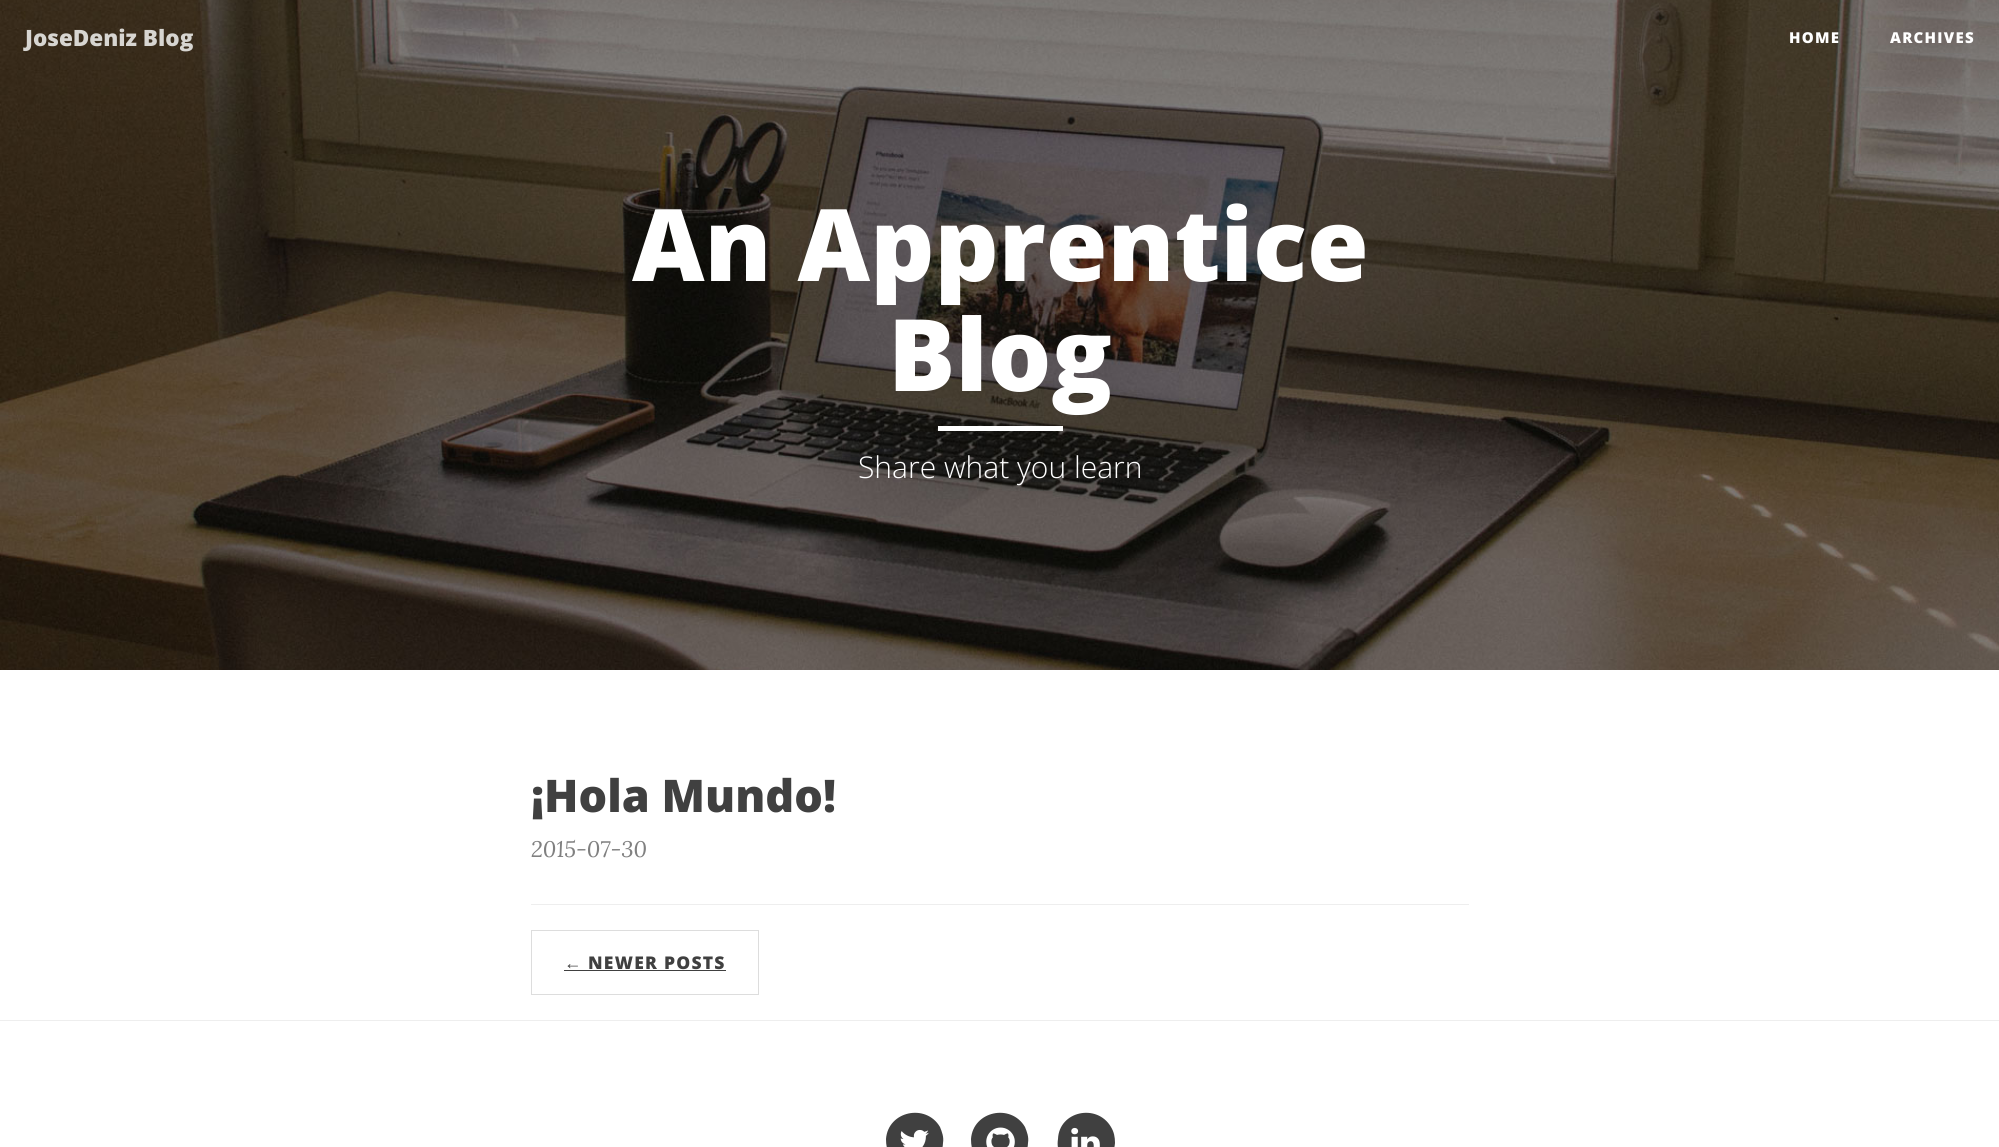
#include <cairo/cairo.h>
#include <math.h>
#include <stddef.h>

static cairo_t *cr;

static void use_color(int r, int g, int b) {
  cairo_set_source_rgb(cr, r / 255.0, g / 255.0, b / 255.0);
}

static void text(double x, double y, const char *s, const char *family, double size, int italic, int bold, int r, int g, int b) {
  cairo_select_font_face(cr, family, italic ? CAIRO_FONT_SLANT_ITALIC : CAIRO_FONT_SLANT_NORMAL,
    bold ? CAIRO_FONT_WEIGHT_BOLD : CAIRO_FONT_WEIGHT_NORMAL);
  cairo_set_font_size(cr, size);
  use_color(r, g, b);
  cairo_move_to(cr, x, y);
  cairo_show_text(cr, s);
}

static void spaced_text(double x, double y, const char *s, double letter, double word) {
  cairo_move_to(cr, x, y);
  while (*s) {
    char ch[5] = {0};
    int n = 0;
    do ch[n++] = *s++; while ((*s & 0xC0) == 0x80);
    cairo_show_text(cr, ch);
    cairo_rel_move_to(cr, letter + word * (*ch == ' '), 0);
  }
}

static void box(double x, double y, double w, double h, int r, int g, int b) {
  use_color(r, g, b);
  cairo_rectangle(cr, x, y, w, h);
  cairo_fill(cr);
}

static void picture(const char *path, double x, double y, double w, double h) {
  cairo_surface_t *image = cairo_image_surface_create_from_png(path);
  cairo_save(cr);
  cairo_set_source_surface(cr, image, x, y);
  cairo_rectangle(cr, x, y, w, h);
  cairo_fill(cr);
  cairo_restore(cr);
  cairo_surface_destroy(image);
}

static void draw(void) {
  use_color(255, 255, 255);
  cairo_paint(cr);
  picture("img_01.png", 0, 0, 1999, 670);
  box(938, 426, 125, 5, 255, 255, 255);
  box(531, 904, 938, 1, 238, 238, 238);
  cairo_rectangle(cr, 531.5, 930.5, 227, 64);
  use_color(221, 221, 221);
  cairo_set_line_width(cr, 1);
  cairo_stroke(cr);
  box(564, 970, 162, 1, 64, 64, 64);
  box(0, 1020, 1999, 1, 238, 238, 238);
  use_color(64, 64, 64);
  cairo_new_path(cr);
  cairo_move_to(cr, 940, 1127);
  cairo_curve_to(cr, 942, 1132, 944, 1137, 943, 1143);
  cairo_curve_to(cr, 942, 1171, 904, 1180, 890, 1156);
  cairo_curve_to(cr, 887, 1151, 886, 1145, 886, 1139);
  cairo_curve_to(cr, 888, 1111, 926, 1103, 940, 1127);
  cairo_close_path(cr);
  cairo_fill(cr);
  picture("img_02.png", 900, 1129, 29, 18);
  cairo_new_path(cr);
  cairo_move_to(cr, 1025, 1127);
  cairo_curve_to(cr, 1027, 1132, 1029, 1137, 1028, 1143);
  cairo_curve_to(cr, 1027, 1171, 989, 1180, 975, 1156);
  cairo_curve_to(cr, 972, 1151, 971, 1145, 971, 1139);
  cairo_curve_to(cr, 973, 1111, 1011, 1103, 1025, 1127);
  cairo_close_path(cr);
  cairo_fill(cr);
  picture("img_03.png", 986, 1127, 29, 20);
  cairo_new_path(cr);
  cairo_move_to(cr, 1111, 1127);
  cairo_curve_to(cr, 1114, 1132, 1115, 1137, 1115, 1143);
  cairo_curve_to(cr, 1113, 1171, 1075, 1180, 1061, 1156);
  cairo_curve_to(cr, 1058, 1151, 1057, 1145, 1058, 1139);
  cairo_curve_to(cr, 1059, 1111, 1097, 1103, 1111, 1127);
  cairo_close_path(cr);
  cairo_fill(cr);
  picture("img_04.png", 1071, 1127, 29, 20);
  text(25, 46, "JoseDeniz Blog", "Open Sans ExtraBold", 22.5, 0, 0, 215, 213, 209);
  cairo_set_font_size(cr, 15);
  use_color(255, 255, 255);
  spaced_text(1789, 43, "HOME", 1.25, 0);
  spaced_text(1890, 43, "ARCHIVES", 1.25, 0);
  text(632, 281, "An Apprentice", "Open Sans ExtraBold", 100, 0, 0, 255, 255, 255);
  text(888, 391, "Blog", "Open Sans ExtraBold", 100, 0, 0, 255, 255, 255);
  text(858, 478, "Share what you learn", "Open Sans Light", 30, 0, 0, 255, 255, 255);
  text(531, 812, "¡Hola Mundo!", "Open Sans ExtraBold", 45, 0, 0, 64, 64, 64);
  text(531, 857, "2015-07-30", "Lora", 22.5, 1, 0, 128, 128, 128);
  cairo_select_font_face(cr, "Liberation Sans", CAIRO_FONT_SLANT_NORMAL, CAIRO_FONT_WEIGHT_BOLD);
  cairo_set_font_size(cr, 17.5);
  use_color(64, 64, 64);
  spaced_text(564, 969, "←", 1.25, 0);
  cairo_select_font_face(cr, "Open Sans ExtraBold", CAIRO_FONT_SLANT_NORMAL, CAIRO_FONT_WEIGHT_NORMAL);
  spaced_text(588, 969, "NEWER POSTS", 1.25, 0);
}

int main(void) {
  cairo_surface_t *surface = cairo_image_surface_create(CAIRO_FORMAT_RGB24, 1999, 1147);
  cr = cairo_create(surface);
  cairo_font_options_t *options = cairo_font_options_create();
  cairo_font_options_set_hint_metrics(options, CAIRO_HINT_METRICS_OFF);
  cairo_font_options_set_hint_style(options, CAIRO_HINT_STYLE_NONE);
  cairo_set_font_options(cr, options);
  cairo_set_miter_limit(cr, 4);
  draw();
  cairo_surface_write_to_png(surface, "out.png");
  cairo_font_options_destroy(options);
  cairo_destroy(cr);
  cairo_surface_destroy(surface);
  return 0;
}
